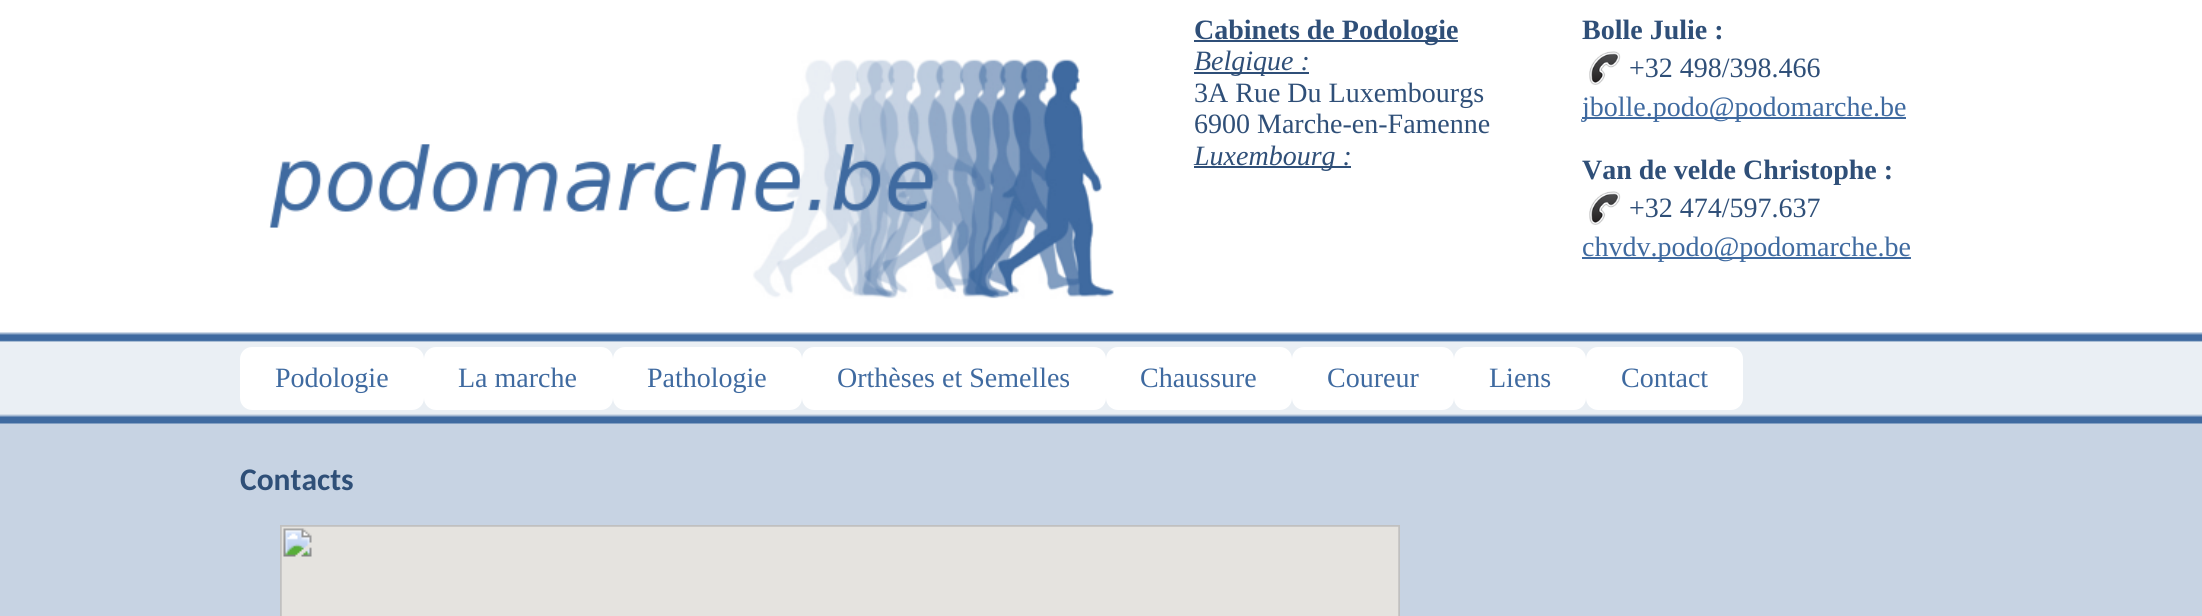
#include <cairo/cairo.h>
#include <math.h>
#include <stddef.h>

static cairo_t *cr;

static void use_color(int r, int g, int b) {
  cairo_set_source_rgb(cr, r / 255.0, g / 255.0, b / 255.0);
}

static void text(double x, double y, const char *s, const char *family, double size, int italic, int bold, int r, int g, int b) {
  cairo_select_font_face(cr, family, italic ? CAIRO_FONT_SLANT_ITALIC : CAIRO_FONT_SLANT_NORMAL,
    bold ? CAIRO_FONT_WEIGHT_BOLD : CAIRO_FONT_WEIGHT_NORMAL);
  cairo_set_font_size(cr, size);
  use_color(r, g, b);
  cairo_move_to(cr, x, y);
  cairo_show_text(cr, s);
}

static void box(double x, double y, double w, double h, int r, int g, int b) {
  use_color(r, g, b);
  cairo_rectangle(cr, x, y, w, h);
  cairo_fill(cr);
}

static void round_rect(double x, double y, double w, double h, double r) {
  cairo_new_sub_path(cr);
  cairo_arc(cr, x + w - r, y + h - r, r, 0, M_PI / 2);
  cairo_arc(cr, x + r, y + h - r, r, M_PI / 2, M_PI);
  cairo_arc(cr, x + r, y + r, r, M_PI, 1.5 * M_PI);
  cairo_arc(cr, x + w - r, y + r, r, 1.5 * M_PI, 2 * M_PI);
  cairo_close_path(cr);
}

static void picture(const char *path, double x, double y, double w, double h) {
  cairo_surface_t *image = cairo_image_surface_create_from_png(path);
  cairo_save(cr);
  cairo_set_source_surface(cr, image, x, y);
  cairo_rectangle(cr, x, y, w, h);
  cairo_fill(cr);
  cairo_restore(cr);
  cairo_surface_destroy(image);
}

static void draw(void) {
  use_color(199, 211, 227);
  cairo_paint(cr);
  picture("img_01.png", 0, 0, 2202, 424);
  picture("img_02.png", 269, 59, 845, 240);
  box(1194, 40, 264, 2, 47, 79, 120);
  box(1194, 72, 115, 2, 47, 79, 120);
  box(1194, 166, 157, 2, 47, 79, 120);
  picture("img_03.png", 1589, 51, 32, 34);
  box(1582, 117, 324, 2, 63, 106, 160);
  picture("img_03.png", 1589, 191, 32, 34);
  box(1582, 257, 329, 2, 63, 106, 160);
  use_color(255, 255, 255);
  round_rect(240, 347, 184, 63, 12);
  cairo_fill(cr);
  round_rect(424, 347, 189, 63, 12);
  cairo_fill(cr);
  round_rect(613, 347, 189, 63, 12);
  cairo_fill(cr);
  round_rect(802, 347, 304, 63, 12);
  cairo_fill(cr);
  round_rect(1106, 347, 186, 63, 12);
  cairo_fill(cr);
  round_rect(1292, 347, 162, 63, 12);
  cairo_fill(cr);
  round_rect(1454, 347, 132, 63, 12);
  cairo_fill(cr);
  round_rect(1586, 347, 157, 63, 12);
  cairo_fill(cr);
  picture("img_04.png", 280, 525, 1120, 91);
  text(1194, 39, "Cabinets de Podologie", "Liberation Serif", 28, 0, 1, 47, 79, 120);
  text(1194, 70, "Belgique :", "Liberation Serif", 28, 1, 0, 47, 79, 120);
  text(1194, 102, "3A Rue Du Luxembourgs", "Liberation Serif", 28, 0, 0, 47, 79, 120);
  text(1194, 133, "6900 Marche-en-Famenne", "Liberation Serif", 28, 0, 0, 47, 79, 120);
  text(1194, 165, "Luxembourg :", "Liberation Serif", 28, 1, 0, 47, 79, 120);
  text(1582, 39, "Bolle Julie :", "Liberation Serif", 28, 0, 1, 47, 79, 120);
  text(1629, 77, "+32 498/398.466", "Liberation Serif", 28, 0, 0, 47, 79, 120);
  text(1582, 116, "jbolle.podo@podomarche.be", "Liberation Serif", 28, 0, 0, 63, 106, 160);
  text(1582, 179, "Van de velde Christophe :", "Liberation Serif", 28, 0, 1, 47, 79, 120);
  text(1629, 217, "+32 474/597.637", "Liberation Serif", 28, 0, 0, 47, 79, 120);
  text(1582, 256, "chvdv.podo@podomarche.be", "Liberation Serif", 28, 0, 0, 63, 106, 160);
  text(275, 387, "Podologie", "Liberation Serif", 28, 0, 0, 63, 106, 160);
  text(458, 387, "La marche", "Liberation Serif", 28, 0, 0, 63, 106, 160);
  text(647, 387, "Pathologie", "Liberation Serif", 28, 0, 0, 63, 106, 160);
  text(837, 387, "Orthèses et Semelles", "Liberation Serif", 28, 0, 0, 63, 106, 160);
  text(1140, 387, "Chaussure", "Liberation Serif", 28, 0, 0, 63, 106, 160);
  text(1327, 387, "Coureur", "Liberation Serif", 28, 0, 0, 63, 106, 160);
  text(1489, 387, "Liens", "Liberation Serif", 28, 0, 0, 63, 106, 160);
  text(1621, 387, "Contact", "Liberation Serif", 28, 0, 0, 63, 106, 160);
  text(240, 490, "Contacts", "Carlito", 31.5, 0, 1, 47, 79, 120);
}

int main(void) {
  cairo_surface_t *surface = cairo_image_surface_create(CAIRO_FORMAT_RGB24, 2202, 616);
  cr = cairo_create(surface);
  cairo_font_options_t *options = cairo_font_options_create();
  cairo_font_options_set_hint_metrics(options, CAIRO_HINT_METRICS_OFF);
  cairo_font_options_set_hint_style(options, CAIRO_HINT_STYLE_NONE);
  cairo_set_font_options(cr, options);
  cairo_set_miter_limit(cr, 4);
  draw();
  cairo_surface_write_to_png(surface, "out.png");
  cairo_font_options_destroy(options);
  cairo_destroy(cr);
  cairo_surface_destroy(surface);
  return 0;
}
